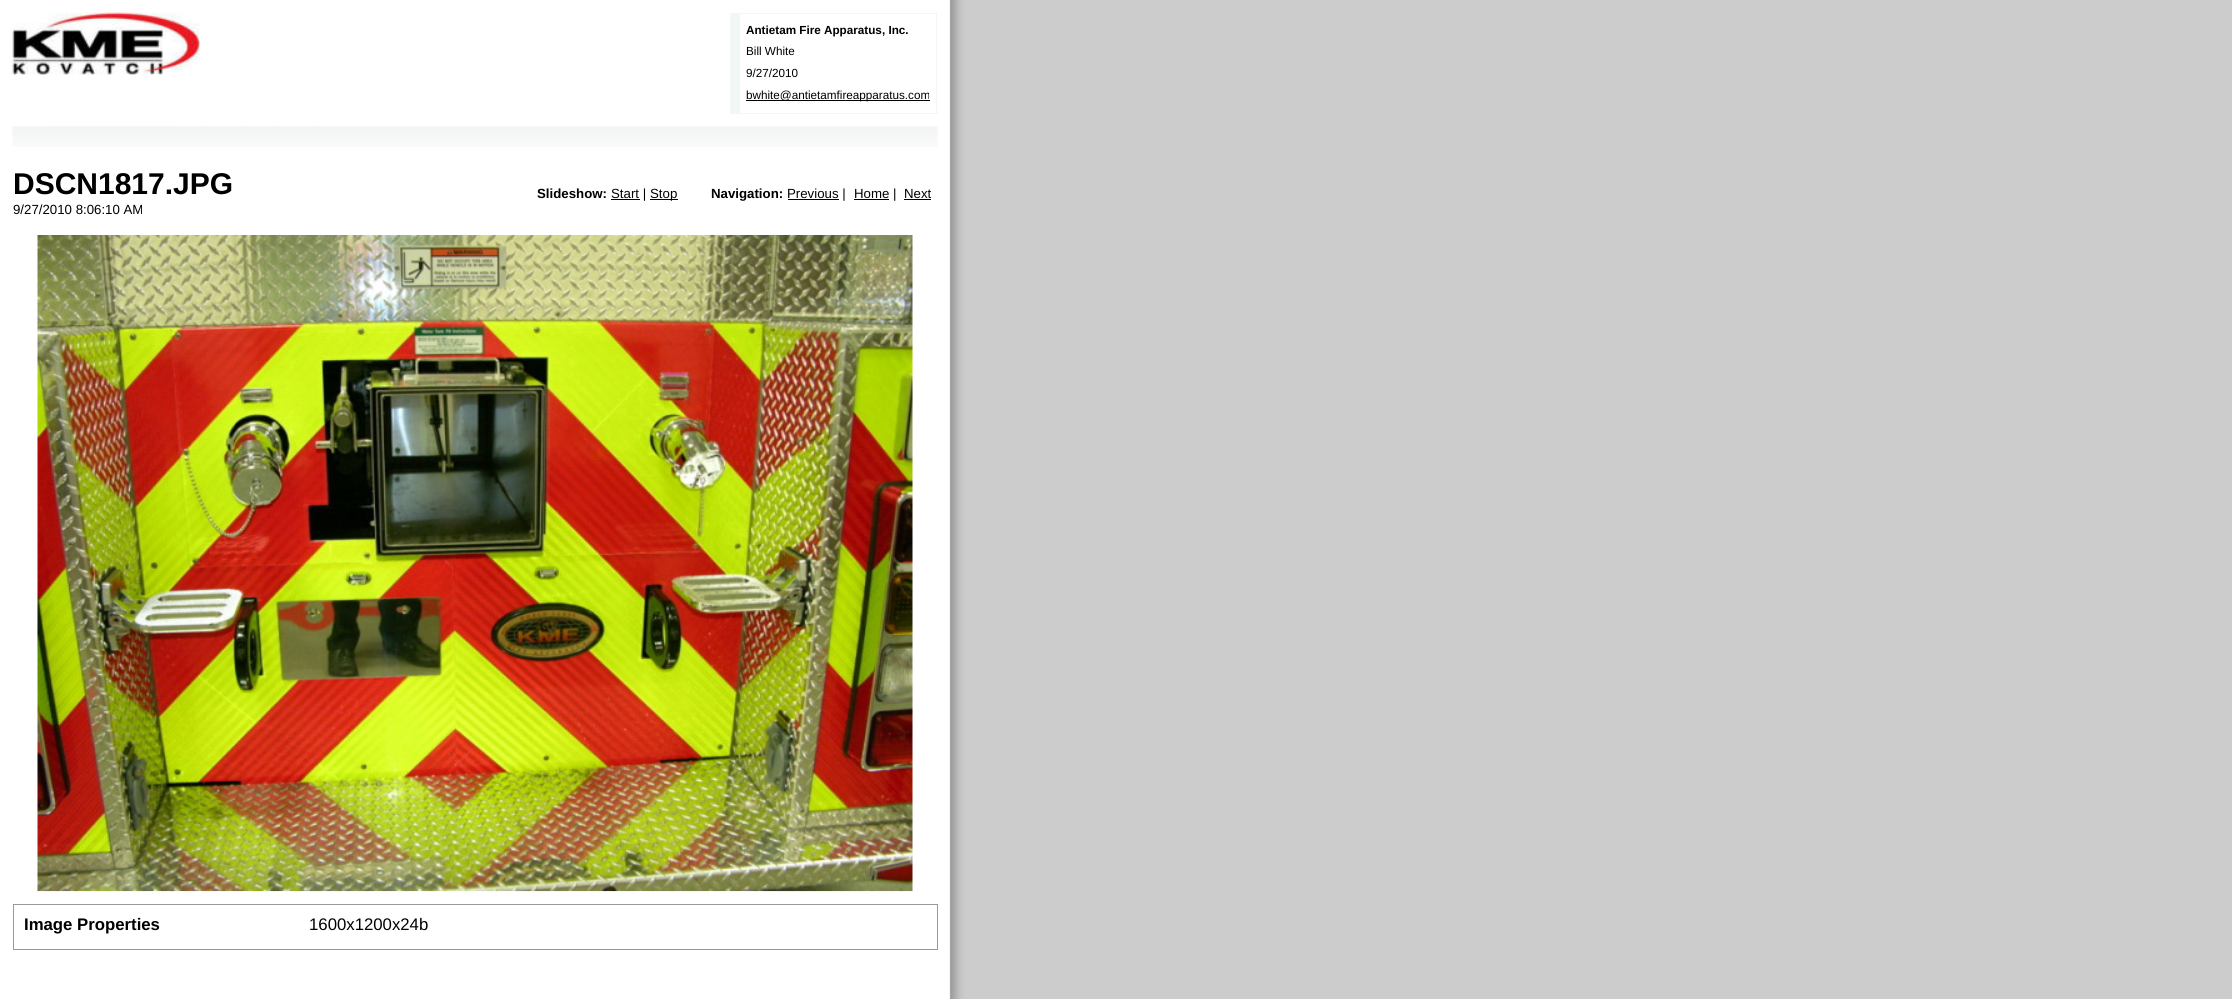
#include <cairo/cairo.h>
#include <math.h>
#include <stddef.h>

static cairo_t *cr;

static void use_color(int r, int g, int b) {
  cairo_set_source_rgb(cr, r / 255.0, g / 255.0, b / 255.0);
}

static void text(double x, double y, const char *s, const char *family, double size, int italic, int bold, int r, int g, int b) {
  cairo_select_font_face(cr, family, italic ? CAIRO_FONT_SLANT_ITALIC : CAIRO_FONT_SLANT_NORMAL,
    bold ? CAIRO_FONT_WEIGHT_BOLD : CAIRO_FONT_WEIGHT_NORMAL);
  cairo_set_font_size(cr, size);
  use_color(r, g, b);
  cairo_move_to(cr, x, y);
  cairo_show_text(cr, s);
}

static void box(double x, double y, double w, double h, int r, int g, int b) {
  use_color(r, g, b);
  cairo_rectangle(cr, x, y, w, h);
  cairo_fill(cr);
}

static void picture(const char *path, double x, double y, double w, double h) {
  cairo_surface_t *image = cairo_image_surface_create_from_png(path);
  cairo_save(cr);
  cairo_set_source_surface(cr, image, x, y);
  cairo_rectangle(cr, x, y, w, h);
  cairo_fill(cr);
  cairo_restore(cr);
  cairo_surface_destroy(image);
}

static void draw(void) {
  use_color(255, 255, 255);
  cairo_paint(cr);
  picture("img_01.png", 949, 0, 1283, 999);
  picture("img_02.png", 12, 12, 188, 63);
  box(740, 13, 198, 1, 241, 246, 246);
  box(936, 13, 1, 101, 241, 246, 246);
  box(740, 113, 198, 1, 241, 246, 246);
  box(730, 13, 10, 101, 241, 246, 246);
  box(746, 100, 184, 1, 0, 0, 0);
  picture("img_03.png", 12, 126, 926, 21);
  box(611, 199, 29, 1, 0, 0, 0);
  box(650, 199, 28, 1, 0, 0, 0);
  box(788, 199, 51, 1, 0, 0, 0);
  box(854, 199, 35, 1, 0, 0, 0);
  box(904, 199, 27, 1, 0, 0, 0);
  picture("img_04.png", 37, 235, 876, 657);
  cairo_rectangle(cr, 13.5, 904.5, 924, 45);
  use_color(153, 153, 153);
  cairo_set_line_width(cr, 1);
  cairo_stroke(cr);
  text(746, 34, "Antietam Fire Apparatus, Inc.", "Liberation Sans", 11.7, 0, 1, 0, 0, 0);
  text(746, 55, "Bill White", "Liberation Sans", 11.7, 0, 0, 0, 0, 0);
  text(746, 77, "9/27/2010", "Liberation Sans", 11.7, 0, 0, 0, 0, 0);
  text(746, 99, "bwhite@antietamfireapparatus.com", "Liberation Sans", 11.7, 0, 0, 0, 0, 0);
  text(13, 194, "DSCN1817.JPG", "Liberation Sans", 30, 0, 1, 0, 0, 0);
  text(13, 214, "9/27/2010 8:06:10 AM", "Liberation Sans", 13.25, 0, 0, 0, 0, 0);
  text(537, 198, "Slideshow:", "Liberation Sans", 13.25, 0, 1, 0, 0, 0);
  text(611, 198, "Start |", "Liberation Sans", 13.25, 0, 0, 0, 0, 0);
  text(650, 198, "Stop", "Liberation Sans", 13.25, 0, 0, 0, 0, 0);
  text(711, 198, "Navigation:", "Liberation Sans", 13.25, 0, 1, 0, 0, 0);
  text(787, 198, "Previous |", "Liberation Sans", 13.25, 0, 0, 0, 0, 0);
  text(854, 198, "Home |", "Liberation Sans", 13.25, 0, 0, 0, 0, 0);
  text(904, 198, "Next", "Liberation Sans", 13.25, 0, 0, 0, 0, 0);
  text(24, 930, "Image Properties", "Liberation Sans", 16.75, 0, 1, 0, 0, 0);
  text(309, 930, "1600x1200x24b", "Liberation Sans", 16.75, 0, 0, 0, 0, 0);
}

int main(void) {
  cairo_surface_t *surface = cairo_image_surface_create(CAIRO_FORMAT_RGB24, 2232, 999);
  cr = cairo_create(surface);
  cairo_font_options_t *options = cairo_font_options_create();
  cairo_font_options_set_hint_metrics(options, CAIRO_HINT_METRICS_OFF);
  cairo_font_options_set_hint_style(options, CAIRO_HINT_STYLE_NONE);
  cairo_set_font_options(cr, options);
  cairo_set_miter_limit(cr, 4);
  draw();
  cairo_surface_write_to_png(surface, "out.png");
  cairo_font_options_destroy(options);
  cairo_destroy(cr);
  cairo_surface_destroy(surface);
  return 0;
}
